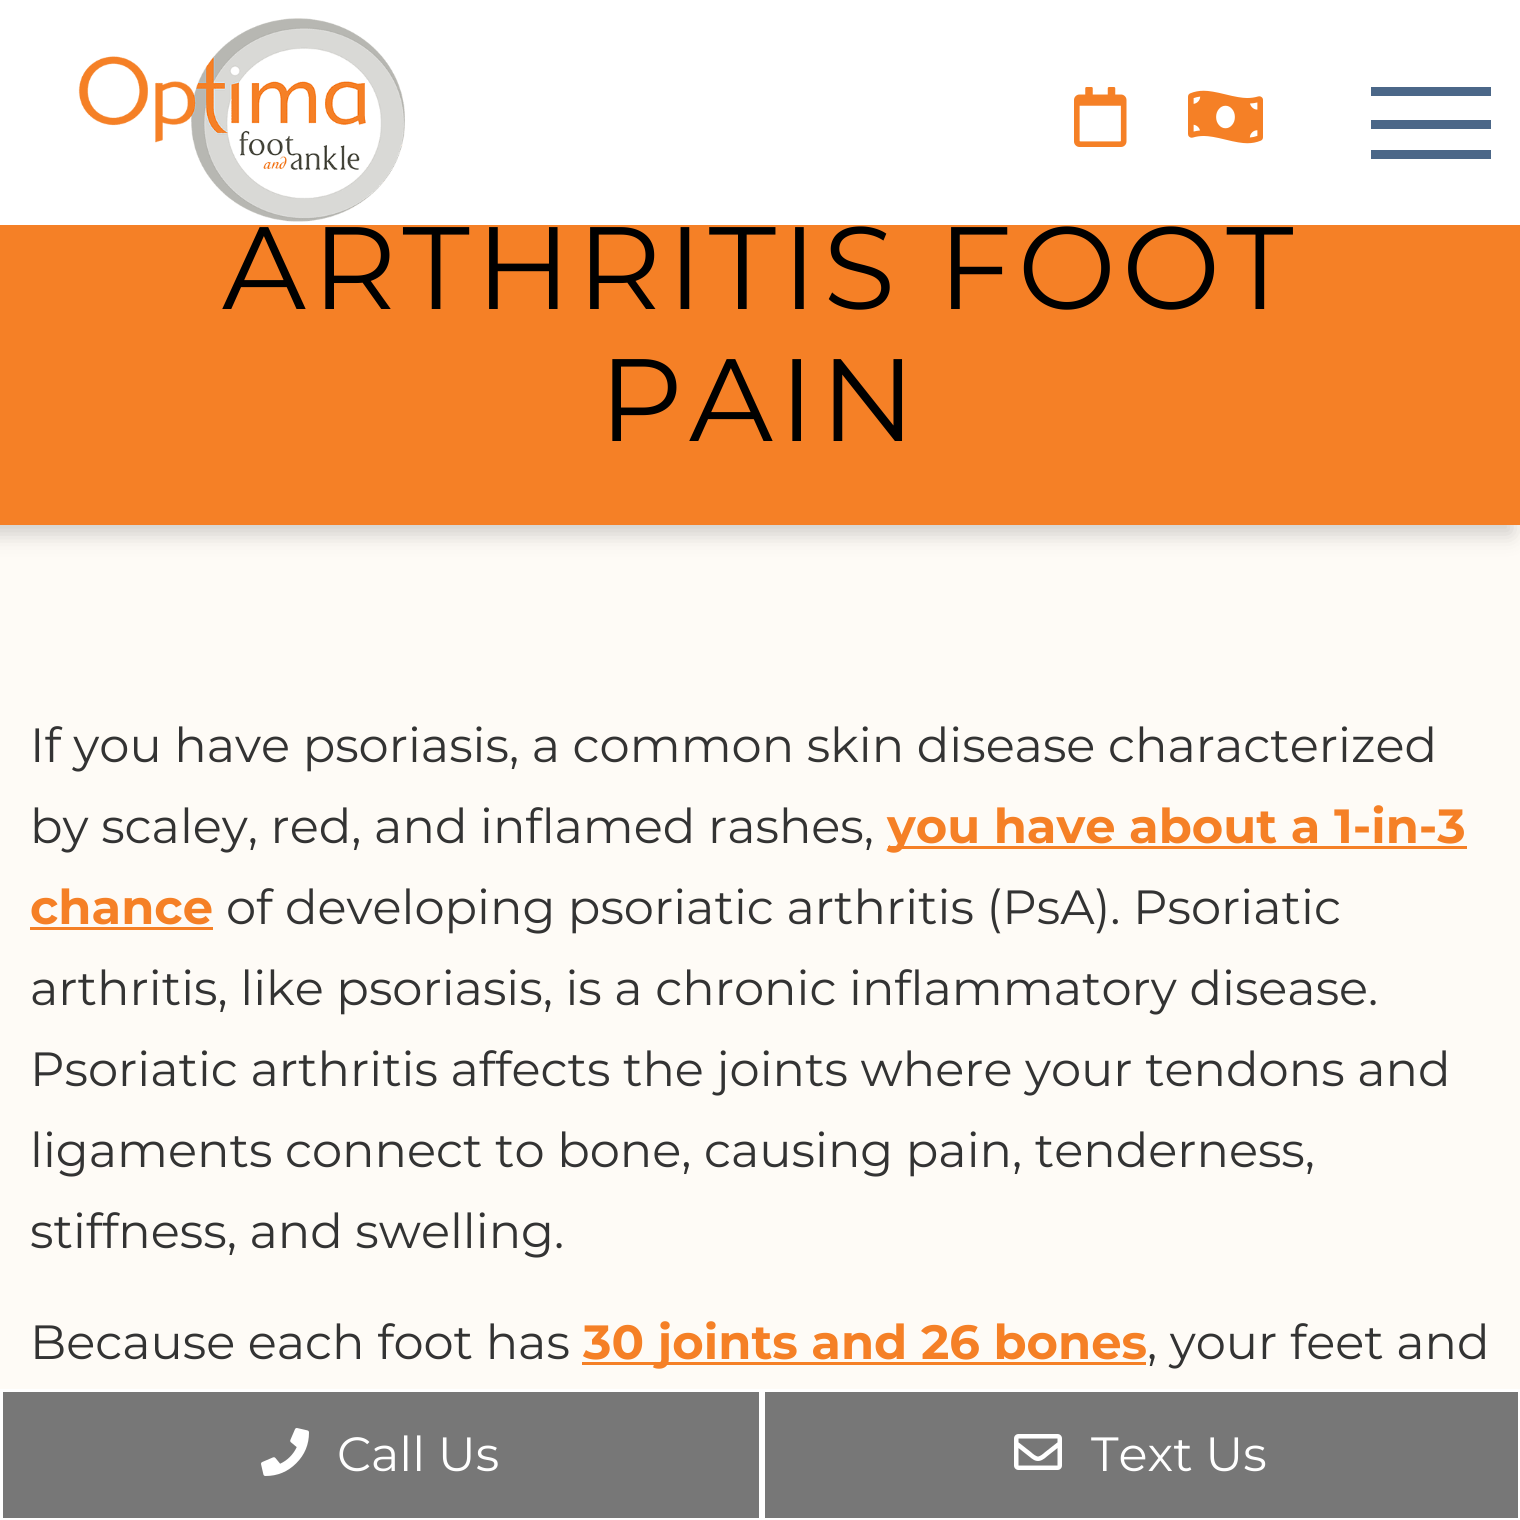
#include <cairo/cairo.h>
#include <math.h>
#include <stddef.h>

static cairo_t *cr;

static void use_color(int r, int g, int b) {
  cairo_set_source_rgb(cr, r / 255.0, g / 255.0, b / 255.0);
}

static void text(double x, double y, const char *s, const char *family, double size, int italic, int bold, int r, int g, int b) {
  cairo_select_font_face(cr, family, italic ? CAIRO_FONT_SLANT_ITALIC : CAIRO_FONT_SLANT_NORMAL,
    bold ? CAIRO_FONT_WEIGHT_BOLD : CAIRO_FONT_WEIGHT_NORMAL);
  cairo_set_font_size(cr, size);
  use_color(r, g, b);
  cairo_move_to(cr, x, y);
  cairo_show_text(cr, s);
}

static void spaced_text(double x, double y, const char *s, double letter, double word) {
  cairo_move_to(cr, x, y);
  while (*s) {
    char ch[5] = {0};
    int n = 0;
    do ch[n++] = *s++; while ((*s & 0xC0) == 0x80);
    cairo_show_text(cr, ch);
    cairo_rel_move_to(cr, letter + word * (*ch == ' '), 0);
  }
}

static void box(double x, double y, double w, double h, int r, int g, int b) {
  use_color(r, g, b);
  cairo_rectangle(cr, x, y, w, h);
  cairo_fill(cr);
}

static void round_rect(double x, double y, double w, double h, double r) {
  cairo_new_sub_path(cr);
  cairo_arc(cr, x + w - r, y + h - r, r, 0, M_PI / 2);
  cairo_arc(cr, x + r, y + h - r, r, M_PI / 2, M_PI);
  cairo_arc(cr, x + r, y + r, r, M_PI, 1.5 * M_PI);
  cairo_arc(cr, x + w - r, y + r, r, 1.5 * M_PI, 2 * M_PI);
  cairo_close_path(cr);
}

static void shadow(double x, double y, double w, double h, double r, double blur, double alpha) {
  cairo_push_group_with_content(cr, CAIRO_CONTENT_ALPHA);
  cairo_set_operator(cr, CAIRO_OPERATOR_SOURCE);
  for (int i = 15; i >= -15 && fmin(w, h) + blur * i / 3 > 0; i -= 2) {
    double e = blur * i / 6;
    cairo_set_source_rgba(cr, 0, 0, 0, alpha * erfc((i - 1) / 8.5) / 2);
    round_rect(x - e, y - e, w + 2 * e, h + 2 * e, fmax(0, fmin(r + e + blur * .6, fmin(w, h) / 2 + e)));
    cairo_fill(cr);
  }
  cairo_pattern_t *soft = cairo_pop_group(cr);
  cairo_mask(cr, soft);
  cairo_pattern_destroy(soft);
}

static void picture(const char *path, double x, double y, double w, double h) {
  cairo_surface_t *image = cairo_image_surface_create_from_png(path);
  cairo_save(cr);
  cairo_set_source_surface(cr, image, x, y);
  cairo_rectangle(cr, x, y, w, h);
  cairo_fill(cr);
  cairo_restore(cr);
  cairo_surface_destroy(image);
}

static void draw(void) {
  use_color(254, 251, 246);
  cairo_paint(cr);
  use_color(0, 0, 0);
  shadow(-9, -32, 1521, 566, 0, 10.5, 0.19);
  box(0, 0, 1520, 225, 255, 255, 255);
  picture("img_01.png", 78, 18, 327, 204);
  picture("img_02.png", 1074, 87, 53, 60);
  picture("img_03.png", 1188, 90, 75, 54);
  box(1371, 87, 120, 9, 75, 103, 136);
  box(1371, 120, 120, 9, 75, 103, 136);
  box(1371, 150, 120, 9, 75, 103, 136);
  box(0, 225, 1520, 300, 245, 128, 38);
  box(888, 846, 579, 3, 245, 128, 38);
  box(30, 927, 183, 3, 245, 128, 38);
  box(582, 1362, 564, 3, 245, 128, 38);
  use_color(119, 119, 119);
  cairo_rectangle(cr, 1.5, 1390.5, 759, 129);
  cairo_fill_preserve(cr);
  use_color(255, 255, 255);
  cairo_set_line_width(cr, 3);
  cairo_stroke(cr);
  picture("img_04.png", 261, 1428, 48, 48);
  use_color(119, 119, 119);
  cairo_rectangle(cr, 763.5, 1390.5, 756, 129);
  cairo_fill_preserve(cr);
  use_color(255, 255, 255);
  cairo_stroke(cr);
  picture("img_05.png", 1014, 1434, 48, 36);
  cairo_select_font_face(cr, "Montserrat", CAIRO_FONT_SLANT_NORMAL, CAIRO_FONT_WEIGHT_NORMAL);
  cairo_set_font_size(cr, 117);
  use_color(0, 0, 0);
  spaced_text(222, 309, "ARTHRITIS FOOT", 6, 0);
  spaced_text(599, 441, "PAIN", 6, 0);
  text(30, 762, "If you have psoriasis, a common skin disease characterized", "Montserrat", 48, 0, 0, 51, 51, 51);
  text(30, 843, "by scaley, red, and inflamed rashes,", "Montserrat", 48, 0, 0, 51, 51, 51);
  text(887, 843, "you have about a 1-in-3", "Montserrat", 48, 0, 1, 245, 128, 38);
  text(30, 924, "chance", "Montserrat", 48, 0, 1, 245, 128, 38);
  text(226, 924, "of developing psoriatic arthritis (PsA). Psoriatic", "Montserrat", 48, 0, 0, 51, 51, 51);
  text(30, 1005, "arthritis, like psoriasis, is a chronic inflammatory disease.", "Montserrat", 48, 0, 0, 51, 51, 51);
  text(30, 1086, "Psoriatic arthritis affects the joints where your tendons and", "Montserrat", 48, 0, 0, 51, 51, 51);
  text(30, 1167, "ligaments connect to bone, causing pain, tenderness,", "Montserrat", 48, 0, 0, 51, 51, 51);
  text(30, 1248, "stiffness, and swelling.", "Montserrat", 48, 0, 0, 51, 51, 51);
  text(30, 1359, "Because each foot has", "Montserrat", 48, 0, 0, 51, 51, 51);
  text(583, 1359, "30 joints and 26 bones", "Montserrat", 48, 0, 1, 245, 128, 38);
  text(1147, 1359, ", your feet and", "Montserrat", 48, 0, 0, 51, 51, 51);
  text(337, 1471, "Call Us", "Montserrat", 48, 0, 0, 255, 255, 255);
  text(1091, 1471, "Text Us", "Montserrat", 48, 0, 0, 255, 255, 255);
}

int main(void) {
  cairo_surface_t *surface = cairo_image_surface_create(CAIRO_FORMAT_RGB24, 1520, 1520);
  cr = cairo_create(surface);
  cairo_font_options_t *options = cairo_font_options_create();
  cairo_font_options_set_hint_metrics(options, CAIRO_HINT_METRICS_OFF);
  cairo_font_options_set_hint_style(options, CAIRO_HINT_STYLE_NONE);
  cairo_set_font_options(cr, options);
  cairo_set_miter_limit(cr, 4);
  draw();
  cairo_surface_write_to_png(surface, "out.png");
  cairo_font_options_destroy(options);
  cairo_destroy(cr);
  cairo_surface_destroy(surface);
  return 0;
}
